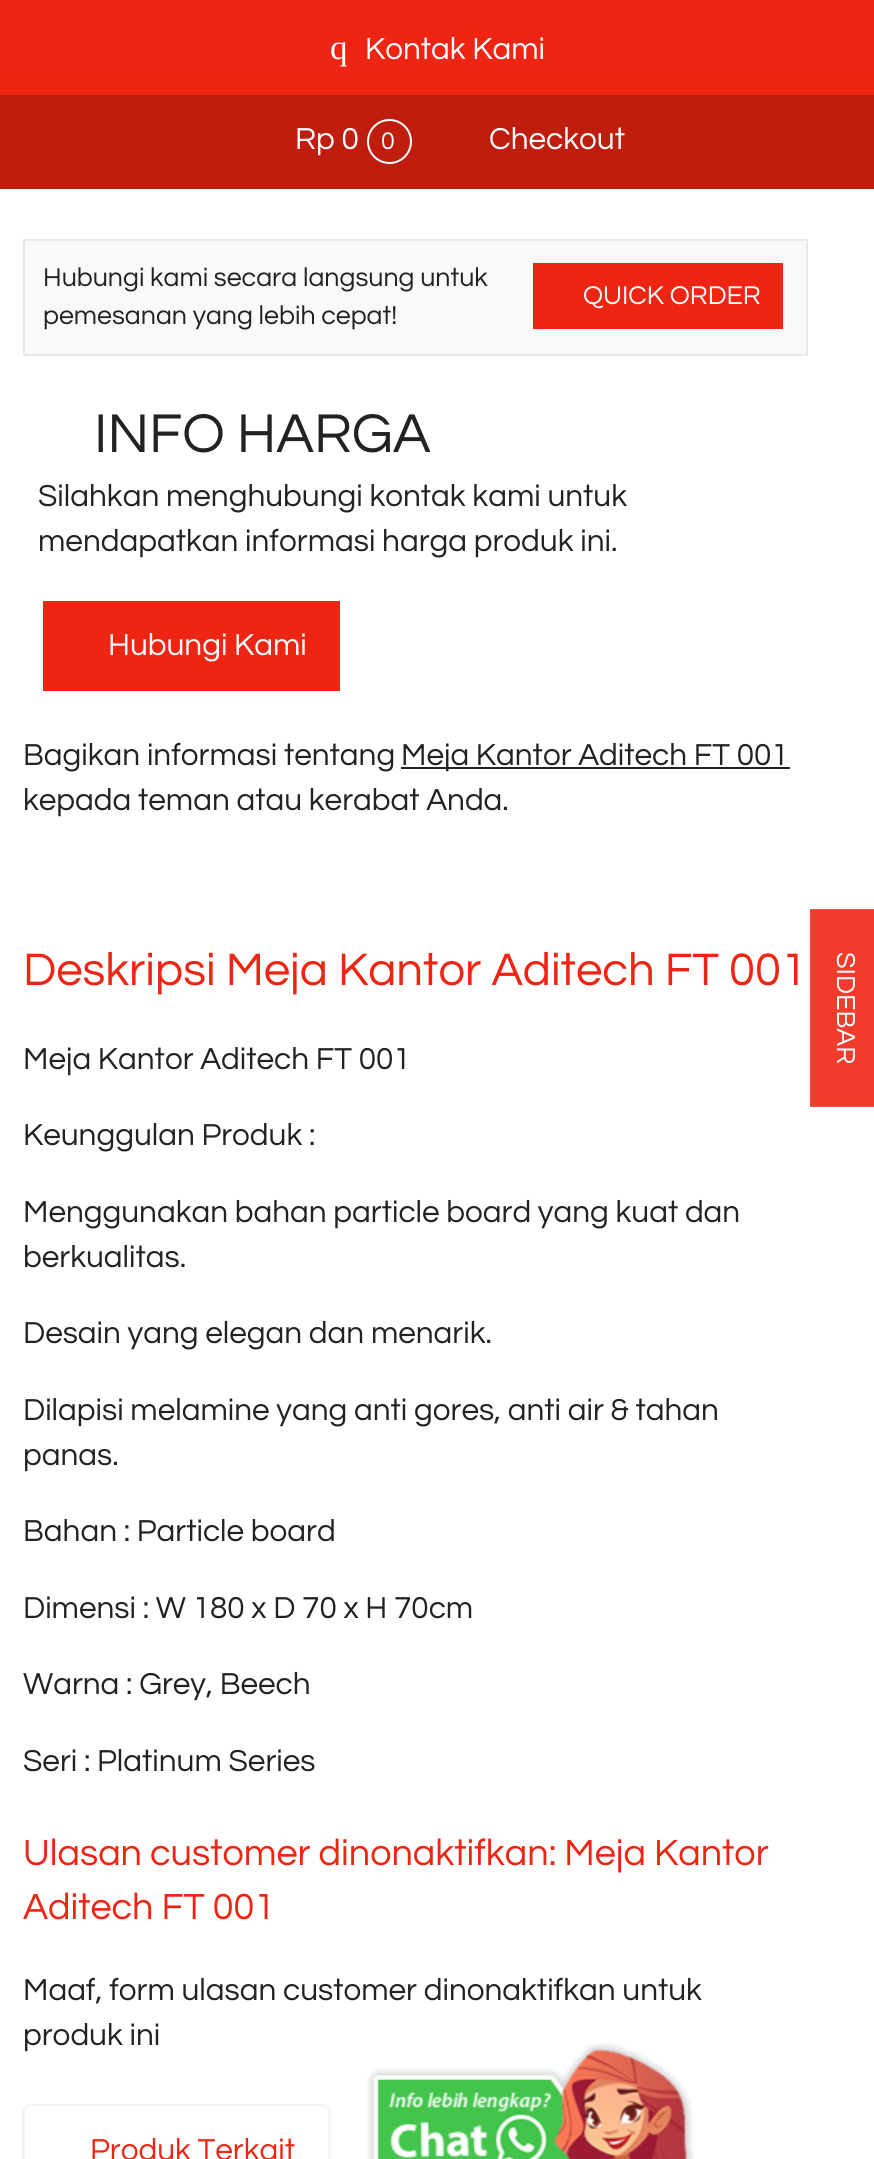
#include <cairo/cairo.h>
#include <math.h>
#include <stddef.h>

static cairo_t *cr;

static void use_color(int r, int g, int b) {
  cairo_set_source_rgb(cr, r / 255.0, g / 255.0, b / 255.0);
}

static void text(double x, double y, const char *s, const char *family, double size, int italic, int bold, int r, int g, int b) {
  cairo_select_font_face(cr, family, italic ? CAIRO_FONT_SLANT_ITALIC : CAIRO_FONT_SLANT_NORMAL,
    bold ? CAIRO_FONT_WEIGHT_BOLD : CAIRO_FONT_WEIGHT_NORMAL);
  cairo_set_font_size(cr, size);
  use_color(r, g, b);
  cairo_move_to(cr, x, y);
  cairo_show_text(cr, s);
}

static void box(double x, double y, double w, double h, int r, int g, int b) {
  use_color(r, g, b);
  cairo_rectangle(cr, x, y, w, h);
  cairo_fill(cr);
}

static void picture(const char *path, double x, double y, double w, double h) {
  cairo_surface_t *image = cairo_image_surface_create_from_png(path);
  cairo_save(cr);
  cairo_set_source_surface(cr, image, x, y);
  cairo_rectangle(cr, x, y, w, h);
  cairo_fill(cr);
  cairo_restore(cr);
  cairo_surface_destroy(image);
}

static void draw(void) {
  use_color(255, 255, 255);
  cairo_paint(cr);
  box(0, 0, 874, 95, 239, 37, 19);
  box(0, 95, 874, 94, 191, 30, 15);
  cairo_arc(cr, 389.5, 141.5, 21.5, 0, 2 * M_PI);
  use_color(255, 255, 255);
  cairo_stroke(cr);
  use_color(249, 249, 249);
  cairo_rectangle(cr, 24, 240, 783, 115);
  cairo_fill_preserve(cr);
  use_color(233, 233, 233);
  cairo_stroke(cr);
  box(533, 263, 250, 66, 239, 37, 19);
  box(43, 601, 297, 90, 239, 37, 19);
  box(401, 767, 389, 2, 34, 34, 34);
  use_color(243, 243, 243);
  cairo_new_path(cr);
  cairo_move_to(cr, 32, 2104);
  cairo_curve_to(cr, 30, 2104, 27, 2105, 25, 2107);
  cairo_line_to(cr, 27, 2108);
  cairo_curve_to(cr, 28, 2107, 30, 2106, 32, 2106);
  cairo_line_to(cr, 322, 2106);
  cairo_curve_to(cr, 324, 2106, 325, 2107, 326, 2108);
  cairo_line_to(cr, 328, 2106);
  cairo_curve_to(cr, 327, 2105, 324, 2104, 322, 2104);
  cairo_close_path(cr);
  cairo_fill(cr);
  cairo_new_path(cr);
  cairo_move_to(cr, 328, 2106);
  cairo_curve_to(cr, 329, 2108, 330, 2109, 331, 2111);
  cairo_line_to(cr, 331, 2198);
  cairo_line_to(cr, 328, 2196);
  cairo_line_to(cr, 328, 2113);
  cairo_curve_to(cr, 328, 2111, 327, 2109, 326, 2108);
  cairo_close_path(cr);
  cairo_fill(cr);
  cairo_new_path(cr);
  cairo_move_to(cr, 22, 2110);
  cairo_line_to(cr, 25, 2107);
  cairo_line_to(cr, 27, 2108);
  cairo_curve_to(cr, 26, 2109, 25, 2111, 25, 2113);
  cairo_line_to(cr, 25, 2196);
  cairo_line_to(cr, 22, 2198);
  cairo_close_path(cr);
  cairo_fill(cr);
  box(810, 909, 64, 198, 241, 59, 43);
  cairo_new_path(cr);
  cairo_move_to(cr, 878.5, 908);
  cairo_line_to(cr, 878.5, 1108);
  cairo_line_to(cr, 809, 1108);
  cairo_line_to(cr, 809, 908);
  cairo_close_path(cr);
  use_color(255, 255, 255);
  cairo_set_line_width(cr, 2.2);
  cairo_stroke(cr);
  picture("img_01.png", 367, 2043, 327, 116);
  text(330, 59, "q", "Liberation Serif", 35, 0, 0, 255, 255, 255);
  text(365, 59, "Kontak Kami", "Questrial", 31.5, 0, 0, 255, 255, 255);
  text(295, 149, "Rp 0", "Questrial", 31.5, 0, 0, 255, 255, 255);
  text(381, 149, "0", "Questrial", 25, 0, 0, 255, 255, 255);
  text(489, 149, "Checkout", "Questrial", 31.5, 0, 0, 255, 255, 255);
  text(43, 286, "Hubungi kami secara langsung untuk", "Questrial", 26.75, 0, 0, 34, 34, 34);
  text(583, 304, "QUICK ORDER", "Questrial", 26.75, 0, 0, 255, 255, 255);
  text(43, 324, "pemesanan yang lebih cepat!", "Questrial", 26.75, 0, 0, 34, 34, 34);
  text(94, 452, "INFO HARGA", "Questrial", 56.75, 0, 0, 34, 34, 34);
  text(38, 506, "Silahkan menghubungi kontak kami untuk", "Questrial", 31.5, 0, 0, 34, 34, 34);
  text(38, 551, "mendapatkan informasi harga produk ini.", "Questrial", 31.5, 0, 0, 34, 34, 34);
  text(108, 655, "Hubungi Kami", "Questrial", 31.5, 0, 0, 255, 255, 255);
  text(23, 765, "Bagikan informasi tentang", "Questrial", 31.5, 0, 0, 34, 34, 34);
  text(401, 765, "Meja Kantor Aditech FT 001", "Questrial", 31.5, 0, 0, 34, 34, 34);
  text(23, 810, "kepada teman atau kerabat Anda.", "Questrial", 31.5, 0, 0, 34, 34, 34);
  text(23, 985, "Deskripsi Meja Kantor Aditech FT 001", "Questrial", 47.25, 0, 0, 239, 37, 19);
  text(23, 1069, "Meja Kantor Aditech FT 001", "Questrial", 31.5, 0, 0, 34, 34, 34);
  text(23, 1145, "Keunggulan Produk :", "Questrial", 31.5, 0, 0, 34, 34, 34);
  text(23, 1222, "Menggunakan bahan particle board yang kuat dan", "Questrial", 31.5, 0, 0, 34, 34, 34);
  text(23, 1267, "berkualitas.", "Questrial", 31.5, 0, 0, 34, 34, 34);
  text(23, 1343, "Desain yang elegan dan menarik.", "Questrial", 31.5, 0, 0, 34, 34, 34);
  text(23, 1420, "Dilapisi melamine yang anti gores, anti air & tahan", "Questrial", 31.5, 0, 0, 34, 34, 34);
  text(23, 1465, "panas.", "Questrial", 31.5, 0, 0, 34, 34, 34);
  text(23, 1541, "Bahan : Particle board", "Questrial", 31.5, 0, 0, 34, 34, 34);
  text(23, 1618, "Dimensi : W 180 x D 70 x H 70cm", "Questrial", 31.5, 0, 0, 34, 34, 34);
  text(23, 1694, "Warna : Grey, Beech", "Questrial", 31.5, 0, 0, 34, 34, 34);
  text(23, 1771, "Seri : Platinum Series", "Questrial", 31.5, 0, 0, 34, 34, 34);
  text(23, 1865, "Ulasan customer dinonaktifkan: Meja Kantor", "Questrial", 37.75, 0, 0, 239, 37, 19);
  text(23, 1919, "Aditech FT 001", "Questrial", 37.75, 0, 0, 239, 37, 19);
  text(23, 2000, "Maaf, form ulasan customer dinonaktifkan untuk", "Questrial", 31.5, 0, 0, 34, 34, 34);
  text(23, 2045, "produk ini", "Questrial", 31.5, 0, 0, 34, 34, 34);
  text(90, 2160, "Produk Terkait", "Questrial", 31.5, 0, 0, 239, 37, 19);
  cairo_save(cr);
  cairo_translate(cr, 837, 952);
  cairo_rotate(cr, 90 * M_PI / 180);
  text(0, 0, "SIDEBAR", "Questrial", 27, 0, 0, 255, 255, 255);
  cairo_restore(cr);
}

int main(void) {
  cairo_surface_t *surface = cairo_image_surface_create(CAIRO_FORMAT_RGB24, 874, 2159);
  cr = cairo_create(surface);
  cairo_font_options_t *options = cairo_font_options_create();
  cairo_font_options_set_hint_metrics(options, CAIRO_HINT_METRICS_OFF);
  cairo_font_options_set_hint_style(options, CAIRO_HINT_STYLE_NONE);
  cairo_set_font_options(cr, options);
  cairo_set_miter_limit(cr, 4);
  draw();
  cairo_surface_write_to_png(surface, "out.png");
  cairo_font_options_destroy(options);
  cairo_destroy(cr);
  cairo_surface_destroy(surface);
  return 0;
}
